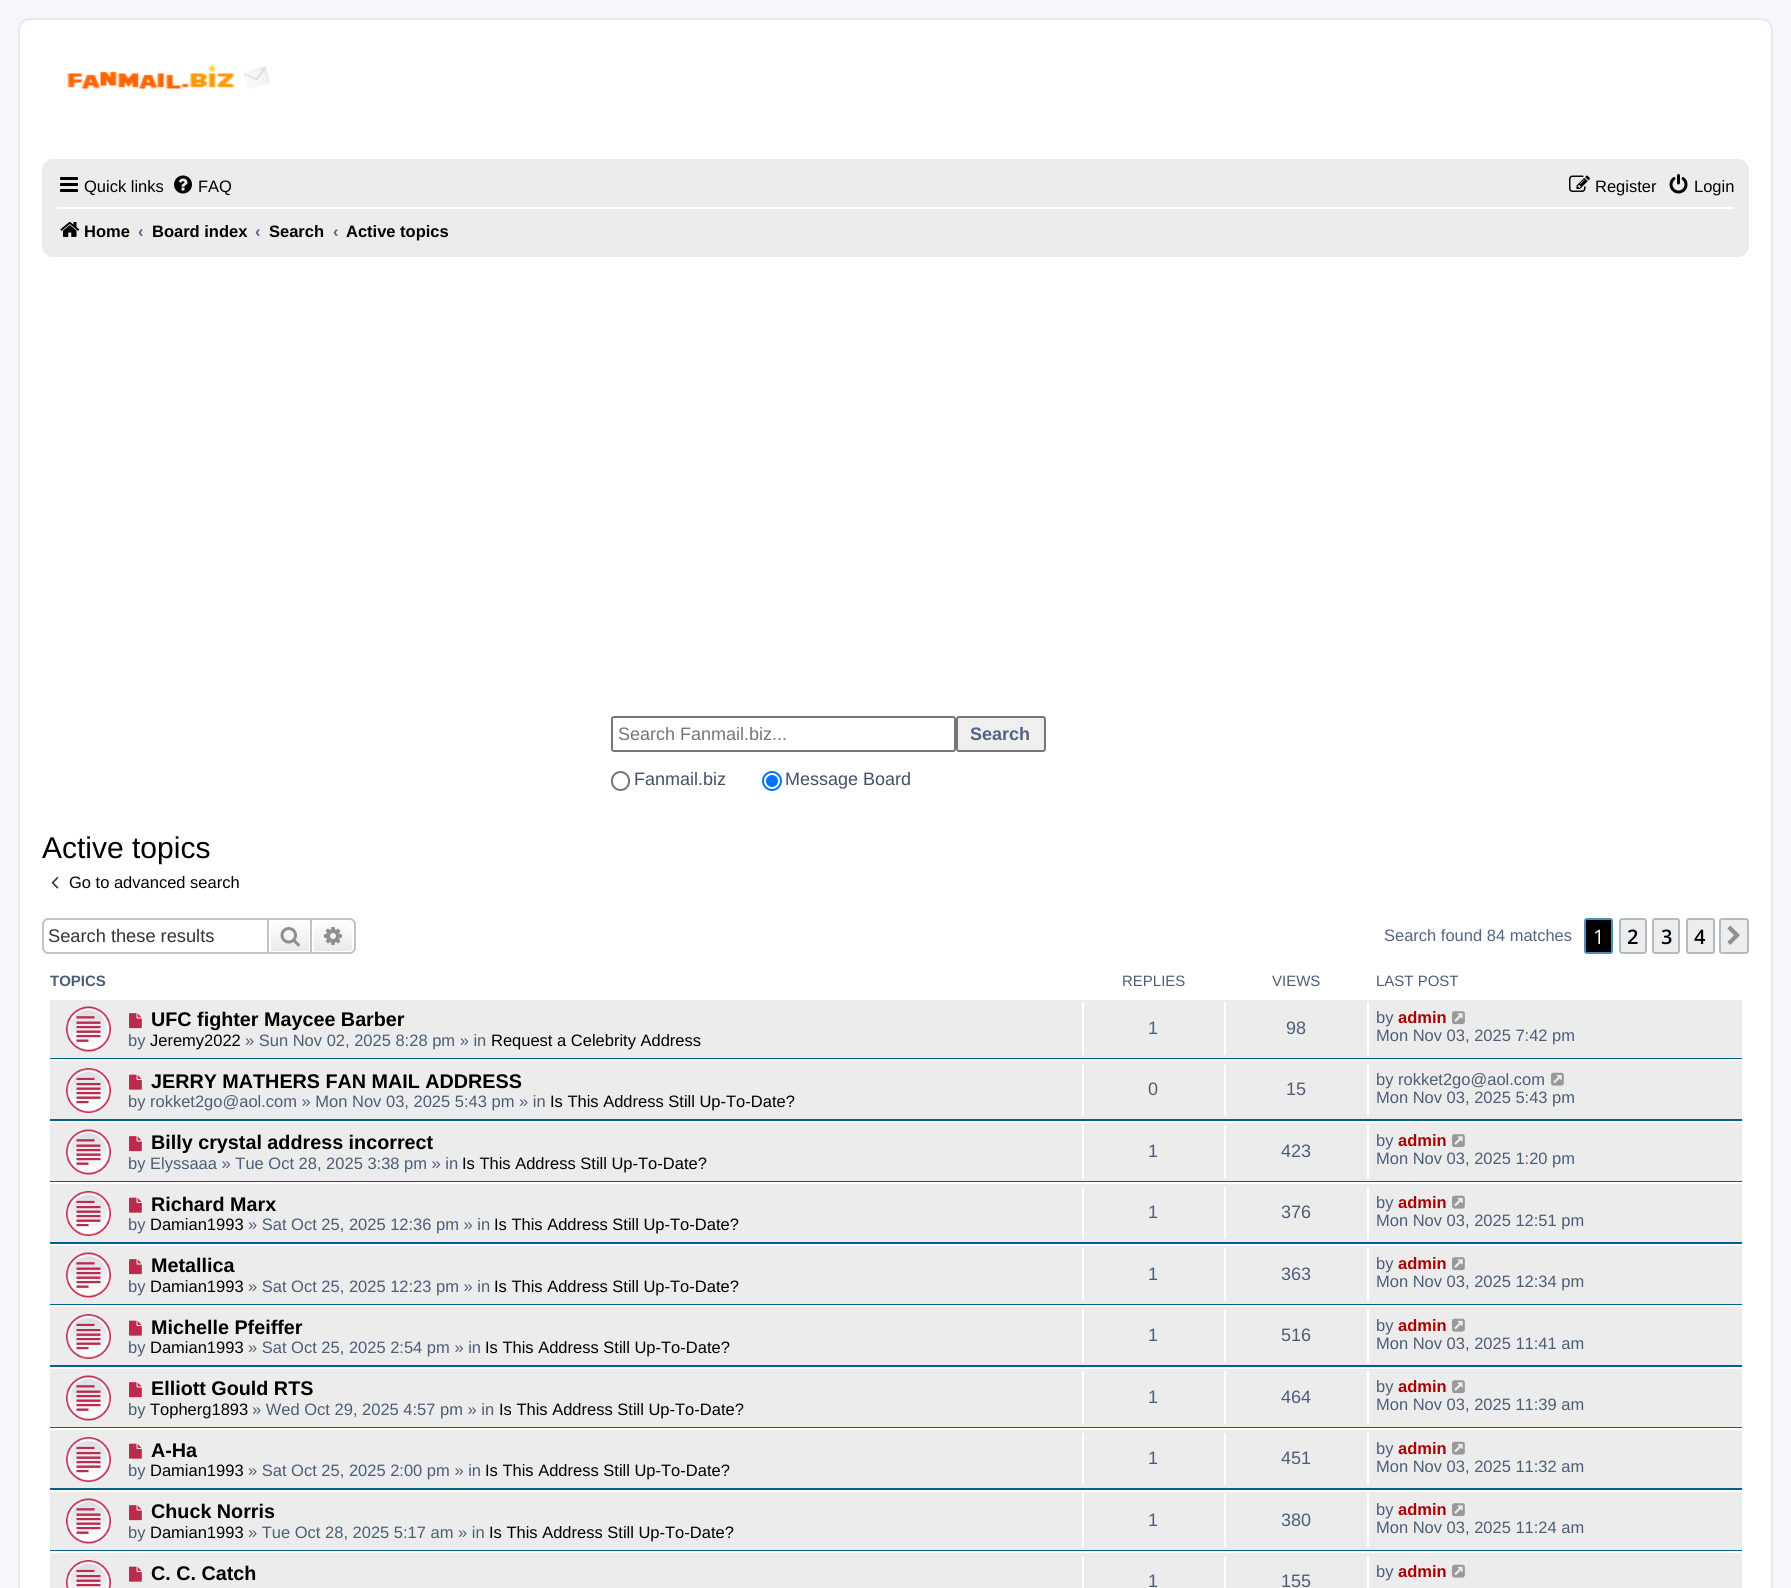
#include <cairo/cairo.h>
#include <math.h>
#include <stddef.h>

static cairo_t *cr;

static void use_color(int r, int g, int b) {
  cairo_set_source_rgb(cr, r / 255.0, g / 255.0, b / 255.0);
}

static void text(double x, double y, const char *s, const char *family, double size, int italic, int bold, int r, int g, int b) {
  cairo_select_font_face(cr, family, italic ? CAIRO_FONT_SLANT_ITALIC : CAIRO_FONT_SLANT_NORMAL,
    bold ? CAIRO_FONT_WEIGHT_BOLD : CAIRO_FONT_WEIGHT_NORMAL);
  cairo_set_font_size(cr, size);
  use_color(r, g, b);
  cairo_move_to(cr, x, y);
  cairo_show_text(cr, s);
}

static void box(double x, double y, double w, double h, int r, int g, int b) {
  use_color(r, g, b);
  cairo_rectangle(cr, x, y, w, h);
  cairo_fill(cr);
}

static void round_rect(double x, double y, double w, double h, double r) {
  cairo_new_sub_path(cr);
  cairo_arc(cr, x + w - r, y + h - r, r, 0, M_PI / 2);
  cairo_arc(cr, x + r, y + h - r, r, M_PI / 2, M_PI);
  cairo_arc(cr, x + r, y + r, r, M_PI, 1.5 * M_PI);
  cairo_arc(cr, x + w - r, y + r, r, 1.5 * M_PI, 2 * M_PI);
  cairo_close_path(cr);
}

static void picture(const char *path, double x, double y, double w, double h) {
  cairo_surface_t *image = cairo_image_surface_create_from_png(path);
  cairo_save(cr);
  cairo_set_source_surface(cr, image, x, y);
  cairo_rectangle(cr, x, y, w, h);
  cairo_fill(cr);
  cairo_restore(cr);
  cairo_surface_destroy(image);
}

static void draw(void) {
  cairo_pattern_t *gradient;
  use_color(245, 247, 250);
  cairo_paint(cr);
  use_color(255, 255, 255);
  round_rect(19, 19, 1753, 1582, 11);
  cairo_fill_preserve(cr);
  use_color(230, 233, 237);
  cairo_stroke(cr);
  picture("img_01.png", 67, 64, 203, 25);
  use_color(236, 236, 236);
  round_rect(42, 159, 1707, 98, 11);
  cairo_fill(cr);
  picture("img_02.png", 60, 177, 18, 15);
  picture("img_03.png", 174, 175, 18, 19);
  picture("img_04.png", 1569, 175, 21, 17);
  picture("img_05.png", 1669, 174, 19, 20);
  box(57, 207, 1677, 2, 255, 255, 255);
  picture("img_06.png", 60, 222, 20, 15);
  round_rect(612, 717, 343, 34, 2);
  use_color(118, 118, 118);
  cairo_stroke(cr);
  use_color(239, 239, 239);
  round_rect(957, 717, 88, 34, 2);
  cairo_fill_preserve(cr);
  use_color(118, 118, 118);
  cairo_stroke(cr);
  round_rect(612, 772, 17, 18, 8.5);
  cairo_stroke(cr);
  cairo_arc(cr, 772, 781, 9, 0, 2 * M_PI);
  use_color(0, 117, 255);
  cairo_stroke(cr);
  cairo_arc(cr, 772, 781, 6, 0, 2 * M_PI);
  cairo_fill(cr);
  picture("img_07.png", 51, 877, 8, 12);
  use_color(199, 195, 191);
  cairo_set_fill_rule(cr, CAIRO_FILL_RULE_EVEN_ODD);
  cairo_new_path(cr);
  cairo_move_to(cr, 48, 918);
  cairo_line_to(cr, 267, 918);
  cairo_line_to(cr, 267, 954);
  cairo_line_to(cr, 48, 954);
  cairo_curve_to(cr, 45, 954, 42, 951, 42, 948);
  cairo_line_to(cr, 42, 924);
  cairo_curve_to(cr, 42, 921, 45, 918, 48, 918);
  cairo_close_path(cr);
  cairo_move_to(cr, 48, 920);
  cairo_line_to(cr, 267, 920);
  cairo_line_to(cr, 267, 952);
  cairo_line_to(cr, 48, 952);
  cairo_curve_to(cr, 46, 952, 44, 950, 44, 948);
  cairo_line_to(cr, 44, 924);
  cairo_curve_to(cr, 44, 922, 46, 920, 48, 920);
  cairo_close_path(cr);
  cairo_fill(cr);
  gradient = cairo_pattern_create_linear(290, 920, 290, 953);
  cairo_pattern_add_color_stop_rgba(gradient, 0, 1, 1, 1, 1);
  cairo_pattern_add_color_stop_rgba(gradient, 1, 0.914, 0.914, 0.914, 1);
  cairo_set_source(cr, gradient);
  cairo_pattern_destroy(gradient);
  cairo_rectangle(cr, 271, 924, 38, 27);
  cairo_fill(cr);
  cairo_rectangle(cr, 268, 919, 43, 34);
  use_color(199, 195, 191);
  cairo_stroke(cr);
  picture("img_08.png", 280, 927, 20, 20);
  gradient = cairo_pattern_create_linear(333, 920, 333, 953);
  cairo_pattern_add_color_stop_rgba(gradient, 0, 1, 1, 1, 1);
  cairo_pattern_add_color_stop_rgba(gradient, 1, 0.914, 0.914, 0.914, 1);
  cairo_set_source(cr, gradient);
  cairo_pattern_destroy(gradient);
  cairo_new_path(cr);
  cairo_move_to(cr, 313, 921);
  cairo_line_to(cr, 349, 921);
  cairo_curve_to(cr, 351, 921, 353, 923, 353, 925);
  cairo_line_to(cr, 353, 948);
  cairo_curve_to(cr, 353, 950, 351, 952, 349, 952);
  cairo_line_to(cr, 313, 952);
  cairo_close_path(cr);
  cairo_fill_preserve(cr);
  use_color(255, 255, 255);
  cairo_stroke(cr);
  use_color(199, 195, 191);
  cairo_new_path(cr);
  cairo_move_to(cr, 312, 918);
  cairo_line_to(cr, 350, 918);
  cairo_curve_to(cr, 353, 918, 356, 921, 356, 924);
  cairo_line_to(cr, 356, 948);
  cairo_curve_to(cr, 356, 951, 353, 954, 350, 954);
  cairo_line_to(cr, 312, 954);
  cairo_close_path(cr);
  cairo_move_to(cr, 312, 920);
  cairo_line_to(cr, 350, 920);
  cairo_curve_to(cr, 352, 920, 354, 922, 354, 924);
  cairo_line_to(cr, 354, 948);
  cairo_curve_to(cr, 354, 950, 352, 952, 350, 952);
  cairo_line_to(cr, 312, 952);
  cairo_close_path(cr);
  cairo_fill(cr);
  picture("img_09.png", 324, 927, 18, 18);
  use_color(0, 0, 0);
  round_rect(1585, 919, 27, 34, 2);
  cairo_fill_preserve(cr);
  use_color(70, 146, 191);
  cairo_stroke(cr);
  use_color(236, 237, 238);
  round_rect(1620, 919, 26, 34, 2);
  cairo_fill_preserve(cr);
  use_color(180, 186, 192);
  cairo_stroke(cr);
  use_color(236, 237, 238);
  round_rect(1653, 919, 26, 34, 2);
  cairo_fill_preserve(cr);
  use_color(180, 186, 192);
  cairo_stroke(cr);
  use_color(236, 237, 238);
  round_rect(1687, 919, 27, 34, 2);
  cairo_fill_preserve(cr);
  use_color(180, 186, 192);
  cairo_stroke(cr);
  use_color(236, 237, 238);
  round_rect(1720, 919, 28, 34, 2);
  cairo_fill_preserve(cr);
  use_color(180, 186, 192);
  cairo_stroke(cr);
  picture("img_10.png", 1727, 925, 13, 20);
  box(50, 1000, 1692, 58, 236, 236, 236);
  box(50, 1058, 1692, 1, 0, 96, 143);
  picture("img_11.png", 66, 1006, 45, 46);
  picture("img_12.png", 129, 1013, 13, 16);
  box(1082, 1002, 2, 53, 255, 255, 255);
  box(1224, 1002, 2, 53, 255, 255, 255);
  box(1367, 1002, 2, 53, 255, 255, 255);
  picture("img_13.png", 1452, 1011, 13, 14);
  box(50, 1061, 1692, 58, 236, 236, 236);
  box(50, 1119, 1692, 2, 0, 96, 143);
  picture("img_14.png", 66, 1068, 45, 45);
  picture("img_15.png", 129, 1074, 13, 16);
  box(1082, 1064, 2, 52, 255, 255, 255);
  box(1224, 1064, 2, 52, 255, 255, 255);
  box(1367, 1064, 2, 52, 255, 255, 255);
  picture("img_16.png", 1551, 1072, 13, 14);
  box(50, 1123, 1692, 58, 236, 236, 236);
  box(50, 1181, 1692, 1, 0, 96, 143);
  picture("img_11.png", 66, 1129, 45, 46);
  picture("img_12.png", 129, 1136, 13, 16);
  box(1082, 1125, 2, 53, 255, 255, 255);
  box(1224, 1125, 2, 53, 255, 255, 255);
  box(1367, 1125, 2, 53, 255, 255, 255);
  picture("img_13.png", 1452, 1134, 13, 14);
  box(50, 1184, 1692, 58, 236, 236, 236);
  box(50, 1242, 1692, 2, 0, 96, 143);
  picture("img_14.png", 66, 1191, 45, 45);
  picture("img_15.png", 129, 1197, 13, 16);
  box(1082, 1187, 2, 52, 255, 255, 255);
  box(1224, 1187, 2, 52, 255, 255, 255);
  box(1367, 1187, 2, 52, 255, 255, 255);
  picture("img_16.png", 1452, 1195, 13, 14);
  box(50, 1246, 1692, 58, 236, 236, 236);
  box(50, 1304, 1692, 1, 0, 96, 143);
  picture("img_11.png", 66, 1252, 45, 46);
  picture("img_12.png", 129, 1259, 13, 16);
  box(1082, 1248, 2, 53, 255, 255, 255);
  box(1224, 1248, 2, 53, 255, 255, 255);
  box(1367, 1248, 2, 53, 255, 255, 255);
  picture("img_13.png", 1452, 1257, 13, 14);
  box(50, 1307, 1692, 58, 236, 236, 236);
  box(50, 1365, 1692, 2, 0, 96, 143);
  picture("img_14.png", 66, 1314, 45, 45);
  picture("img_15.png", 129, 1320, 13, 16);
  box(1082, 1310, 2, 52, 255, 255, 255);
  box(1224, 1310, 2, 52, 255, 255, 255);
  box(1367, 1310, 2, 52, 255, 255, 255);
  picture("img_16.png", 1452, 1318, 13, 14);
  box(50, 1369, 1692, 58, 236, 236, 236);
  box(50, 1427, 1692, 1, 0, 96, 143);
  picture("img_11.png", 66, 1375, 45, 46);
  picture("img_12.png", 129, 1382, 13, 16);
  box(1082, 1371, 2, 53, 255, 255, 255);
  box(1224, 1371, 2, 53, 255, 255, 255);
  box(1367, 1371, 2, 53, 255, 255, 255);
  picture("img_13.png", 1452, 1380, 13, 14);
  box(50, 1430, 1692, 58, 236, 236, 236);
  box(50, 1488, 1692, 2, 0, 96, 143);
  picture("img_14.png", 66, 1437, 45, 45);
  picture("img_15.png", 129, 1443, 13, 16);
  box(1082, 1433, 2, 52, 255, 255, 255);
  box(1224, 1433, 2, 52, 255, 255, 255);
  box(1367, 1433, 2, 52, 255, 255, 255);
  picture("img_16.png", 1452, 1441, 13, 14);
  box(50, 1492, 1692, 58, 236, 236, 236);
  box(50, 1550, 1692, 1, 0, 96, 143);
  picture("img_11.png", 66, 1498, 45, 46);
  picture("img_12.png", 129, 1505, 13, 16);
  box(1082, 1494, 2, 53, 255, 255, 255);
  box(1224, 1494, 2, 53, 255, 255, 255);
  box(1367, 1494, 2, 53, 255, 255, 255);
  picture("img_13.png", 1452, 1503, 13, 14);
  box(50, 1553, 1692, 35, 236, 236, 236);
  picture("img_17.png", 66, 1560, 45, 28);
  picture("img_15.png", 129, 1566, 13, 16);
  box(1082, 1556, 2, 32, 255, 255, 255);
  box(1224, 1556, 2, 32, 255, 255, 255);
  box(1367, 1556, 2, 32, 255, 255, 255);
  picture("img_16.png", 1452, 1564, 13, 14);
  text(84, 192, "Quick links", "Liberation Sans", 16.5, 0, 0, 0, 0, 0);
  text(198, 192, "FAQ", "Liberation Sans", 16.5, 0, 0, 0, 0, 0);
  text(1595, 192, "Register", "Liberation Sans", 16.5, 0, 0, 0, 0, 0);
  text(1694, 192, "Login", "Liberation Sans", 16.5, 0, 0, 0, 0, 0);
  text(84, 237, "Home", "Liberation Sans", 16.5, 0, 1, 0, 0, 0);
  text(138, 237, "‹", "Liberation Sans", 16.5, 0, 1, 83, 100, 130);
  text(152, 237, "Board index", "Liberation Sans", 16.5, 0, 1, 0, 0, 0);
  text(255, 237, "‹", "Liberation Sans", 16.5, 0, 1, 83, 100, 130);
  text(269, 237, "Search", "Liberation Sans", 16.5, 0, 1, 0, 0, 0);
  text(333, 237, "‹", "Liberation Sans", 16.5, 0, 1, 83, 100, 130);
  text(346, 237, "Active topics", "Liberation Sans", 16.5, 0, 1, 0, 0, 0);
  text(618, 740, "Search Fanmail.biz...", "Liberation Sans", 18, 0, 0, 117, 117, 117);
  text(970, 740, "Search", "Liberation Sans", 18, 0, 1, 83, 100, 130);
  text(634, 785, "Fanmail.biz", "Liberation Sans", 18, 0, 0, 66, 80, 103);
  text(785, 785, "Message Board", "Liberation Sans", 18, 0, 0, 66, 80, 103);
  text(42, 858, "Active topics", "Liberation Sans", 30, 0, 0, 0, 0, 0);
  text(69, 888, "Go to advanced search", "Liberation Sans", 16.5, 0, 0, 0, 0, 0);
  text(48, 942, "Search these results", "Liberation Sans", 18.25, 0, 0, 51, 51, 51);
  text(1384, 941, "Search found 84 matches", "Liberation Sans", 16.5, 0, 0, 83, 100, 130);
  text(1593, 944, "1", "Open Sans", 20, 0, 0, 255, 255, 255);
  text(1627, 944, "2", "Open Sans SemiBold", 20, 0, 0, 0, 0, 0);
  text(1661, 944, "3", "Open Sans SemiBold", 20, 0, 0, 0, 0, 0);
  text(1694, 944, "4", "Open Sans SemiBold", 20, 0, 0, 0, 0, 0);
  cairo_save(cr);
  cairo_set_fill_rule(cr, CAIRO_FILL_RULE_WINDING);
  cairo_rectangle(cr, 50, 968, 1692, 30);
  cairo_clip(cr);
  text(50, 986, "TOPICS", "Liberation Sans", 15, 0, 1, 76, 93, 119);
  cairo_restore(cr);
  text(1122, 986, "REPLIES", "Liberation Sans", 15, 0, 0, 76, 93, 119);
  text(1272, 986, "VIEWS", "Liberation Sans", 15, 0, 0, 76, 93, 119);
  text(1376, 986, "LAST POST", "Liberation Sans", 15, 0, 0, 76, 93, 119);
  text(151, 1026, "UFC fighter Maycee Barber", "Liberation Sans", 19.75, 0, 1, 0, 0, 0);
  text(128, 1046, "by", "Liberation Sans", 16.5, 0, 0, 76, 93, 119);
  text(150, 1046, "Jeremy2022", "Liberation Sans", 16.5, 0, 0, 0, 0, 0);
  text(245, 1046, "» Sun Nov 02, 2025 8:28 pm » in", "Liberation Sans", 16.5, 0, 0, 76, 93, 119);
  text(491, 1046, "Request a Celebrity Address", "Liberation Sans", 16.5, 0, 0, 0, 0, 0);
  text(1148, 1034, "1", "Liberation Sans", 18, 0, 0, 76, 93, 119);
  text(1286, 1034, "98", "Liberation Sans", 18, 0, 0, 76, 93, 119);
  text(1376, 1023, "by", "Liberation Sans", 16.5, 0, 0, 76, 93, 119);
  text(1398, 1023, "admin", "Liberation Sans", 16.5, 0, 1, 170, 0, 0);
  text(1376, 1041, "Mon Nov 03, 2025 7:42 pm", "Liberation Sans", 16.5, 0, 0, 76, 93, 119);
  text(151, 1088, "JERRY MATHERS FAN MAIL ADDRESS", "Liberation Sans", 19.75, 0, 1, 0, 0, 0);
  text(128, 1107, "by rokket2go@aol.com » Mon Nov 03, 2025 5:43 pm » in", "Liberation Sans", 16.5, 0, 0, 76, 93, 119);
  text(550, 1107, "Is This Address Still Up-To-Date?", "Liberation Sans", 16.5, 0, 0, 0, 0, 0);
  text(1148, 1095, "0", "Liberation Sans", 18, 0, 0, 76, 93, 119);
  text(1286, 1095, "15", "Liberation Sans", 18, 0, 0, 76, 93, 119);
  text(1376, 1085, "by rokket2go@aol.com", "Liberation Sans", 16.5, 0, 0, 76, 93, 119);
  text(1376, 1103, "Mon Nov 03, 2025 5:43 pm", "Liberation Sans", 16.5, 0, 0, 76, 93, 119);
  text(151, 1149, "Billy crystal address incorrect", "Liberation Sans", 19.75, 0, 1, 0, 0, 0);
  text(128, 1169, "by Elyssaaa » Tue Oct 28, 2025 3:38 pm » in", "Liberation Sans", 16.5, 0, 0, 76, 93, 119);
  text(462, 1169, "Is This Address Still Up-To-Date?", "Liberation Sans", 16.5, 0, 0, 0, 0, 0);
  text(1148, 1157, "1", "Liberation Sans", 18, 0, 0, 76, 93, 119);
  text(1281, 1157, "423", "Liberation Sans", 18, 0, 0, 76, 93, 119);
  text(1376, 1146, "by", "Liberation Sans", 16.5, 0, 0, 76, 93, 119);
  text(1398, 1146, "admin", "Liberation Sans", 16.5, 0, 1, 170, 0, 0);
  text(1376, 1164, "Mon Nov 03, 2025 1:20 pm", "Liberation Sans", 16.5, 0, 0, 76, 93, 119);
  text(151, 1211, "Richard Marx", "Liberation Sans", 19.75, 0, 1, 0, 0, 0);
  text(128, 1230, "by", "Liberation Sans", 16.5, 0, 0, 76, 93, 119);
  text(150, 1230, "Damian1993", "Liberation Sans", 16.5, 0, 0, 0, 0, 0);
  text(248, 1230, "» Sat Oct 25, 2025 12:36 pm » in", "Liberation Sans", 16.5, 0, 0, 76, 93, 119);
  text(494, 1230, "Is This Address Still Up-To-Date?", "Liberation Sans", 16.5, 0, 0, 0, 0, 0);
  text(1148, 1218, "1", "Liberation Sans", 18, 0, 0, 76, 93, 119);
  text(1281, 1218, "376", "Liberation Sans", 18, 0, 0, 76, 93, 119);
  text(1376, 1208, "by", "Liberation Sans", 16.5, 0, 0, 76, 93, 119);
  text(1398, 1208, "admin", "Liberation Sans", 16.5, 0, 1, 170, 0, 0);
  text(1376, 1226, "Mon Nov 03, 2025 12:51 pm", "Liberation Sans", 16.5, 0, 0, 76, 93, 119);
  text(151, 1272, "Metallica", "Liberation Sans", 19.75, 0, 1, 0, 0, 0);
  text(128, 1292, "by", "Liberation Sans", 16.5, 0, 0, 76, 93, 119);
  text(150, 1292, "Damian1993", "Liberation Sans", 16.5, 0, 0, 0, 0, 0);
  text(248, 1292, "» Sat Oct 25, 2025 12:23 pm » in", "Liberation Sans", 16.5, 0, 0, 76, 93, 119);
  text(494, 1292, "Is This Address Still Up-To-Date?", "Liberation Sans", 16.5, 0, 0, 0, 0, 0);
  text(1148, 1280, "1", "Liberation Sans", 18, 0, 0, 76, 93, 119);
  text(1281, 1280, "363", "Liberation Sans", 18, 0, 0, 76, 93, 119);
  text(1376, 1269, "by", "Liberation Sans", 16.5, 0, 0, 76, 93, 119);
  text(1398, 1269, "admin", "Liberation Sans", 16.5, 0, 1, 170, 0, 0);
  text(1376, 1287, "Mon Nov 03, 2025 12:34 pm", "Liberation Sans", 16.5, 0, 0, 76, 93, 119);
  text(151, 1334, "Michelle Pfeiffer", "Liberation Sans", 19.75, 0, 1, 0, 0, 0);
  text(128, 1353, "by", "Liberation Sans", 16.5, 0, 0, 76, 93, 119);
  text(150, 1353, "Damian1993", "Liberation Sans", 16.5, 0, 0, 0, 0, 0);
  text(248, 1353, "» Sat Oct 25, 2025 2:54 pm » in", "Liberation Sans", 16.5, 0, 0, 76, 93, 119);
  text(485, 1353, "Is This Address Still Up-To-Date?", "Liberation Sans", 16.5, 0, 0, 0, 0, 0);
  text(1148, 1341, "1", "Liberation Sans", 18, 0, 0, 76, 93, 119);
  text(1281, 1341, "516", "Liberation Sans", 18, 0, 0, 76, 93, 119);
  text(1376, 1331, "by", "Liberation Sans", 16.5, 0, 0, 76, 93, 119);
  text(1398, 1331, "admin", "Liberation Sans", 16.5, 0, 1, 170, 0, 0);
  text(1376, 1349, "Mon Nov 03, 2025 11:41 am", "Liberation Sans", 16.5, 0, 0, 76, 93, 119);
  text(151, 1395, "Elliott Gould RTS", "Liberation Sans", 19.75, 0, 1, 0, 0, 0);
  text(128, 1415, "by", "Liberation Sans", 16.5, 0, 0, 76, 93, 119);
  text(150, 1415, "Topherg1893", "Liberation Sans", 16.5, 0, 0, 0, 0, 0);
  text(252, 1415, "» Wed Oct 29, 2025 4:57 pm » in", "Liberation Sans", 16.5, 0, 0, 76, 93, 119);
  text(499, 1415, "Is This Address Still Up-To-Date?", "Liberation Sans", 16.5, 0, 0, 0, 0, 0);
  text(1148, 1403, "1", "Liberation Sans", 18, 0, 0, 76, 93, 119);
  text(1281, 1403, "464", "Liberation Sans", 18, 0, 0, 76, 93, 119);
  text(1376, 1392, "by", "Liberation Sans", 16.5, 0, 0, 76, 93, 119);
  text(1398, 1392, "admin", "Liberation Sans", 16.5, 0, 1, 170, 0, 0);
  text(1376, 1410, "Mon Nov 03, 2025 11:39 am", "Liberation Sans", 16.5, 0, 0, 76, 93, 119);
  text(151, 1457, "A-Ha", "Liberation Sans", 19.75, 0, 1, 0, 0, 0);
  text(128, 1476, "by", "Liberation Sans", 16.5, 0, 0, 76, 93, 119);
  text(150, 1476, "Damian1993", "Liberation Sans", 16.5, 0, 0, 0, 0, 0);
  text(248, 1476, "» Sat Oct 25, 2025 2:00 pm » in", "Liberation Sans", 16.5, 0, 0, 76, 93, 119);
  text(485, 1476, "Is This Address Still Up-To-Date?", "Liberation Sans", 16.5, 0, 0, 0, 0, 0);
  text(1148, 1464, "1", "Liberation Sans", 18, 0, 0, 76, 93, 119);
  text(1281, 1464, "451", "Liberation Sans", 18, 0, 0, 76, 93, 119);
  text(1376, 1454, "by", "Liberation Sans", 16.5, 0, 0, 76, 93, 119);
  text(1398, 1454, "admin", "Liberation Sans", 16.5, 0, 1, 170, 0, 0);
  text(1376, 1472, "Mon Nov 03, 2025 11:32 am", "Liberation Sans", 16.5, 0, 0, 76, 93, 119);
  text(151, 1518, "Chuck Norris", "Liberation Sans", 19.75, 0, 1, 0, 0, 0);
  text(128, 1538, "by", "Liberation Sans", 16.5, 0, 0, 76, 93, 119);
  text(150, 1538, "Damian1993", "Liberation Sans", 16.5, 0, 0, 0, 0, 0);
  text(248, 1538, "» Tue Oct 28, 2025 5:17 am » in", "Liberation Sans", 16.5, 0, 0, 76, 93, 119);
  text(489, 1538, "Is This Address Still Up-To-Date?", "Liberation Sans", 16.5, 0, 0, 0, 0, 0);
  text(1148, 1526, "1", "Liberation Sans", 18, 0, 0, 76, 93, 119);
  text(1281, 1526, "380", "Liberation Sans", 18, 0, 0, 76, 93, 119);
  text(1376, 1515, "by", "Liberation Sans", 16.5, 0, 0, 76, 93, 119);
  text(1398, 1515, "admin", "Liberation Sans", 16.5, 0, 1, 170, 0, 0);
  text(1376, 1533, "Mon Nov 03, 2025 11:24 am", "Liberation Sans", 16.5, 0, 0, 76, 93, 119);
  text(151, 1580, "C. C. Catch", "Liberation Sans", 19.75, 0, 1, 0, 0, 0);
  text(1148, 1587, "1", "Liberation Sans", 18, 0, 0, 76, 93, 119);
  text(1281, 1587, "155", "Liberation Sans", 18, 0, 0, 76, 93, 119);
  text(1376, 1577, "by", "Liberation Sans", 16.5, 0, 0, 76, 93, 119);
  text(1398, 1577, "admin", "Liberation Sans", 16.5, 0, 1, 170, 0, 0);
}

int main(void) {
  cairo_surface_t *surface = cairo_image_surface_create(CAIRO_FORMAT_RGB24, 1791, 1588);
  cr = cairo_create(surface);
  cairo_font_options_t *options = cairo_font_options_create();
  cairo_font_options_set_hint_metrics(options, CAIRO_HINT_METRICS_OFF);
  cairo_font_options_set_hint_style(options, CAIRO_HINT_STYLE_NONE);
  cairo_set_font_options(cr, options);
  cairo_set_miter_limit(cr, 4);
  draw();
  cairo_surface_write_to_png(surface, "out.png");
  cairo_font_options_destroy(options);
  cairo_destroy(cr);
  cairo_surface_destroy(surface);
  return 0;
}
